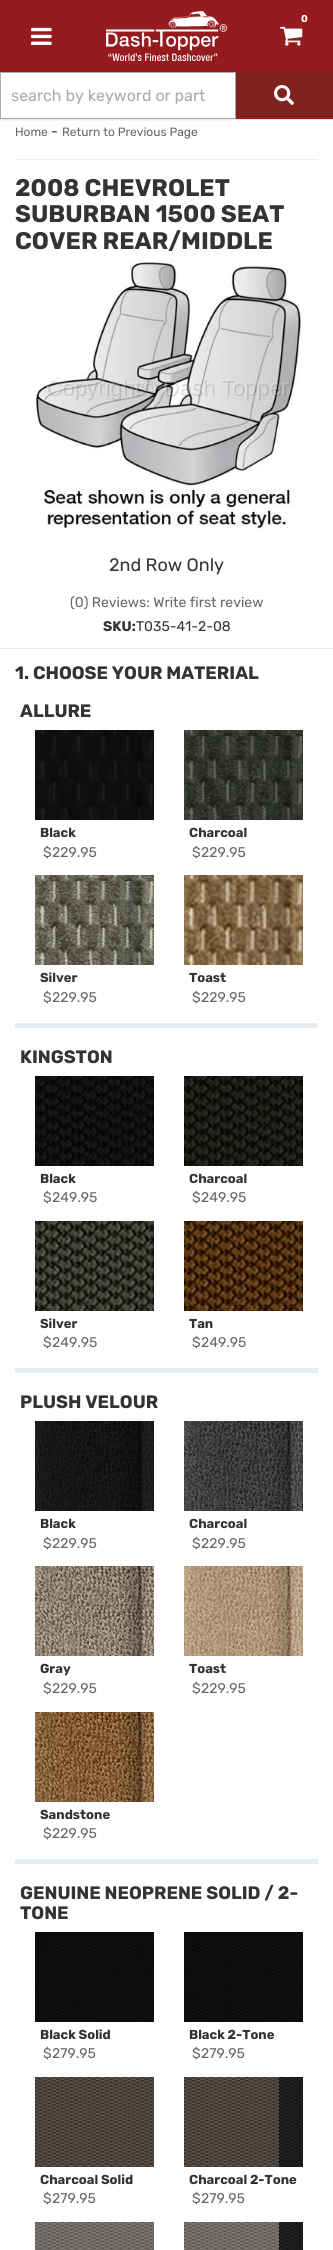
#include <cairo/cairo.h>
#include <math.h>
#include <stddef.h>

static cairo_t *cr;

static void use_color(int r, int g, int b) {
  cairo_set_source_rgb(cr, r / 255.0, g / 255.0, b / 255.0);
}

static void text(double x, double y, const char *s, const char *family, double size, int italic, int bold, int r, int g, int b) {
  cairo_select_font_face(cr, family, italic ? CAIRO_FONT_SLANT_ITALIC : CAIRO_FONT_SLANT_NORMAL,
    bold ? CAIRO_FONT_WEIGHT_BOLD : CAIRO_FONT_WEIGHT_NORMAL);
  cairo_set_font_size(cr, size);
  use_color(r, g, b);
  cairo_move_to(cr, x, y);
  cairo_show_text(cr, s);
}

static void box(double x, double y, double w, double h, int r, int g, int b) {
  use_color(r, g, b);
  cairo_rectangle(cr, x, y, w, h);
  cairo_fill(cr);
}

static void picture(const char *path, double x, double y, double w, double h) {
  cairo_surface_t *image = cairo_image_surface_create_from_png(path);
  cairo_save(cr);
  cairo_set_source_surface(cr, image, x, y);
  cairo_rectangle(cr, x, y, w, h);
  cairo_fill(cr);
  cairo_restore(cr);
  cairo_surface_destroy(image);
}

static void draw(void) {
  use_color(255, 255, 255);
  cairo_paint(cr);
  box(0, 0, 333, 119, 150, 27, 30);
  picture("img_01.png", 106, 11, 121, 50);
  picture("img_02.png", 280, 26, 23, 20);
  picture("img_03.png", 31, 27, 21, 18);
  box(236, 72, 97, 45, 127, 34, 29);
  cairo_set_source_rgba(cr, 0, 0, 0, 0.04);
  cairo_new_path(cr);
  cairo_move_to(cr, -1, 72);
  cairo_line_to(cr, -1, 121);
  cairo_line_to(cr, 237, 121);
  cairo_line_to(cr, 237, 72);
  cairo_line_to(cr, 236, 72);
  cairo_line_to(cr, 236, 119);
  cairo_line_to(cr, 0, 119);
  cairo_line_to(cr, 0, 72);
  cairo_close_path(cr);
  cairo_fill(cr);
  cairo_rectangle(cr, 0.5, 72.5, 235, 46);
  use_color(170, 170, 170);
  cairo_set_line_width(cr, 1);
  cairo_stroke(cr);
  box(1, 73, 234, 45, 255, 255, 255);
  picture("img_04.png", 274, 85, 20, 20);
  box(0, 119, 333, 1, 231, 236, 240);
  box(15, 159, 303, 1, 238, 238, 238);
  picture("img_05.png", 33, 259, 273, 272);
  box(0, 648, 333, 1, 230, 230, 230);
  box(15, 1023, 303, 5, 231, 236, 240);
  picture("img_06.png", 35, 730, 119, 90);
  picture("img_07.png", 184, 730, 119, 90);
  picture("img_08.png", 35, 875, 119, 90);
  picture("img_09.png", 184, 875, 119, 90);
  box(15, 1368, 303, 5, 231, 236, 240);
  picture("img_10.png", 35, 1076, 119, 90);
  picture("img_11.png", 184, 1076, 119, 90);
  picture("img_12.png", 35, 1221, 119, 90);
  picture("img_13.png", 184, 1221, 119, 90);
  box(15, 1859, 303, 5, 231, 236, 240);
  picture("img_14.png", 35, 1421, 119, 90);
  picture("img_15.png", 184, 1421, 119, 90);
  picture("img_16.png", 35, 1566, 119, 90);
  picture("img_17.png", 184, 1566, 119, 90);
  picture("img_18.png", 35, 1712, 119, 90);
  picture("img_19.png", 35, 1932, 119, 90);
  picture("img_19.png", 184, 1932, 119, 90);
  picture("img_20.png", 35, 2077, 119, 90);
  picture("img_21.png", 184, 2077, 119, 90);
  picture("img_22.png", 35, 2222, 119, 28);
  picture("img_23.png", 184, 2222, 119, 28);
  text(301, 22, "0", "Rubik", 10, 0, 1, 255, 255, 255);
  text(11, 101, "search by keyword or part", "Rubik", 16, 0, 0, 170, 170, 170);
  text(15, 136, "Home", "Rubik", 12, 0, 0, 102, 102, 102);
  text(51, 136, "-", "Rubik", 14, 0, 0, 51, 51, 51);
  text(62, 136, "Return to Previous Page", "Rubik", 12, 0, 0, 102, 102, 102);
  text(15, 196, "2008 CHEVROLET", "Rubik", 24, 0, 1, 51, 51, 51);
  text(15, 222, "SUBURBAN 1500 SEAT", "Rubik", 24, 0, 1, 51, 51, 51);
  text(15, 249, "COVER REAR/MIDDLE", "Rubik", 24, 0, 1, 51, 51, 51);
  text(109, 571, "2nd Row Only", "Rubik", 18, 0, 0, 51, 51, 51);
  text(70, 607, "(0) Reviews: Write first review", "Rubik", 14, 0, 0, 102, 102, 102);
  text(103, 631, "SKU:", "Rubik", 14, 0, 1, 51, 51, 51);
  text(136, 631, "T035-41-2-08", "Rubik", 14, 0, 0, 51, 51, 51);
  text(15, 679, "1. CHOOSE YOUR MATERIAL", "Rubik", 18, 0, 1, 51, 51, 51);
  text(20, 717, "ALLURE", "Rubik", 18, 0, 1, 51, 51, 51);
  text(40, 837, "Black", "Rubik", 13, 0, 1, 51, 51, 51);
  text(43, 857, "$", "Rubik", 14, 0, 0, 102, 102, 102);
  text(52, 857, "229.95", "Rubik", 14, 0, 0, 102, 102, 102);
  text(189, 837, "Charcoal", "Rubik", 13, 0, 1, 51, 51, 51);
  text(192, 857, "$", "Rubik", 14, 0, 0, 102, 102, 102);
  text(201, 857, "229.95", "Rubik", 14, 0, 0, 102, 102, 102);
  text(40, 982, "Silver", "Rubik", 13, 0, 1, 51, 51, 51);
  text(43, 1002, "$", "Rubik", 14, 0, 0, 102, 102, 102);
  text(52, 1002, "229.95", "Rubik", 14, 0, 0, 102, 102, 102);
  text(189, 982, "Toast", "Rubik", 13, 0, 1, 51, 51, 51);
  text(192, 1002, "$", "Rubik", 14, 0, 0, 102, 102, 102);
  text(201, 1002, "229.95", "Rubik", 14, 0, 0, 102, 102, 102);
  text(20, 1063, "KINGSTON", "Rubik", 18, 0, 1, 51, 51, 51);
  text(40, 1183, "Black", "Rubik", 13, 0, 1, 51, 51, 51);
  text(43, 1202, "$", "Rubik", 14, 0, 0, 102, 102, 102);
  text(52, 1202, "249.95", "Rubik", 14, 0, 0, 102, 102, 102);
  text(189, 1183, "Charcoal", "Rubik", 13, 0, 1, 51, 51, 51);
  text(192, 1202, "$", "Rubik", 14, 0, 0, 102, 102, 102);
  text(201, 1202, "249.95", "Rubik", 14, 0, 0, 102, 102, 102);
  text(40, 1328, "Silver", "Rubik", 13, 0, 1, 51, 51, 51);
  text(43, 1347, "$", "Rubik", 14, 0, 0, 102, 102, 102);
  text(52, 1347, "249.95", "Rubik", 14, 0, 0, 102, 102, 102);
  text(189, 1328, "Tan", "Rubik", 13, 0, 1, 51, 51, 51);
  text(192, 1347, "$", "Rubik", 14, 0, 0, 102, 102, 102);
  text(201, 1347, "249.95", "Rubik", 14, 0, 0, 102, 102, 102);
  text(20, 1408, "PLUSH VELOUR", "Rubik", 18, 0, 1, 51, 51, 51);
  text(40, 1528, "Black", "Rubik", 13, 0, 1, 51, 51, 51);
  text(43, 1548, "$", "Rubik", 14, 0, 0, 102, 102, 102);
  text(52, 1548, "229.95", "Rubik", 14, 0, 0, 102, 102, 102);
  text(189, 1528, "Charcoal", "Rubik", 13, 0, 1, 51, 51, 51);
  text(192, 1548, "$", "Rubik", 14, 0, 0, 102, 102, 102);
  text(201, 1548, "229.95", "Rubik", 14, 0, 0, 102, 102, 102);
  text(40, 1673, "Gray", "Rubik", 13, 0, 1, 51, 51, 51);
  text(43, 1693, "$", "Rubik", 14, 0, 0, 102, 102, 102);
  text(52, 1693, "229.95", "Rubik", 14, 0, 0, 102, 102, 102);
  text(189, 1673, "Toast", "Rubik", 13, 0, 1, 51, 51, 51);
  text(192, 1693, "$", "Rubik", 14, 0, 0, 102, 102, 102);
  text(201, 1693, "229.95", "Rubik", 14, 0, 0, 102, 102, 102);
  text(40, 1819, "Sandstone", "Rubik", 13, 0, 1, 51, 51, 51);
  text(43, 1838, "$", "Rubik", 14, 0, 0, 102, 102, 102);
  text(52, 1838, "229.95", "Rubik", 14, 0, 0, 102, 102, 102);
  text(20, 1899, "GENUINE NEOPRENE SOLID / 2-", "Rubik", 18, 0, 1, 51, 51, 51);
  text(20, 1919, "TONE", "Rubik", 18, 0, 1, 51, 51, 51);
  text(40, 2039, "Black Solid", "Rubik", 13, 0, 1, 51, 51, 51);
  text(43, 2058, "$", "Rubik", 14, 0, 0, 102, 102, 102);
  text(52, 2058, "279.95", "Rubik", 14, 0, 0, 102, 102, 102);
  text(189, 2039, "Black 2-Tone", "Rubik", 13, 0, 1, 51, 51, 51);
  text(192, 2058, "$", "Rubik", 14, 0, 0, 102, 102, 102);
  text(201, 2058, "279.95", "Rubik", 14, 0, 0, 102, 102, 102);
  text(40, 2184, "Charcoal Solid", "Rubik", 13, 0, 1, 51, 51, 51);
  text(43, 2203, "$", "Rubik", 14, 0, 0, 102, 102, 102);
  text(52, 2203, "279.95", "Rubik", 14, 0, 0, 102, 102, 102);
  text(189, 2184, "Charcoal 2-Tone", "Rubik", 13, 0, 1, 51, 51, 51);
  text(192, 2203, "$", "Rubik", 14, 0, 0, 102, 102, 102);
  text(201, 2203, "279.95", "Rubik", 14, 0, 0, 102, 102, 102);
}

int main(void) {
  cairo_surface_t *surface = cairo_image_surface_create(CAIRO_FORMAT_RGB24, 333, 2250);
  cr = cairo_create(surface);
  cairo_font_options_t *options = cairo_font_options_create();
  cairo_font_options_set_hint_metrics(options, CAIRO_HINT_METRICS_OFF);
  cairo_font_options_set_hint_style(options, CAIRO_HINT_STYLE_NONE);
  cairo_set_font_options(cr, options);
  cairo_set_miter_limit(cr, 4);
  draw();
  cairo_surface_write_to_png(surface, "out.png");
  cairo_font_options_destroy(options);
  cairo_destroy(cr);
  cairo_surface_destroy(surface);
  return 0;
}
